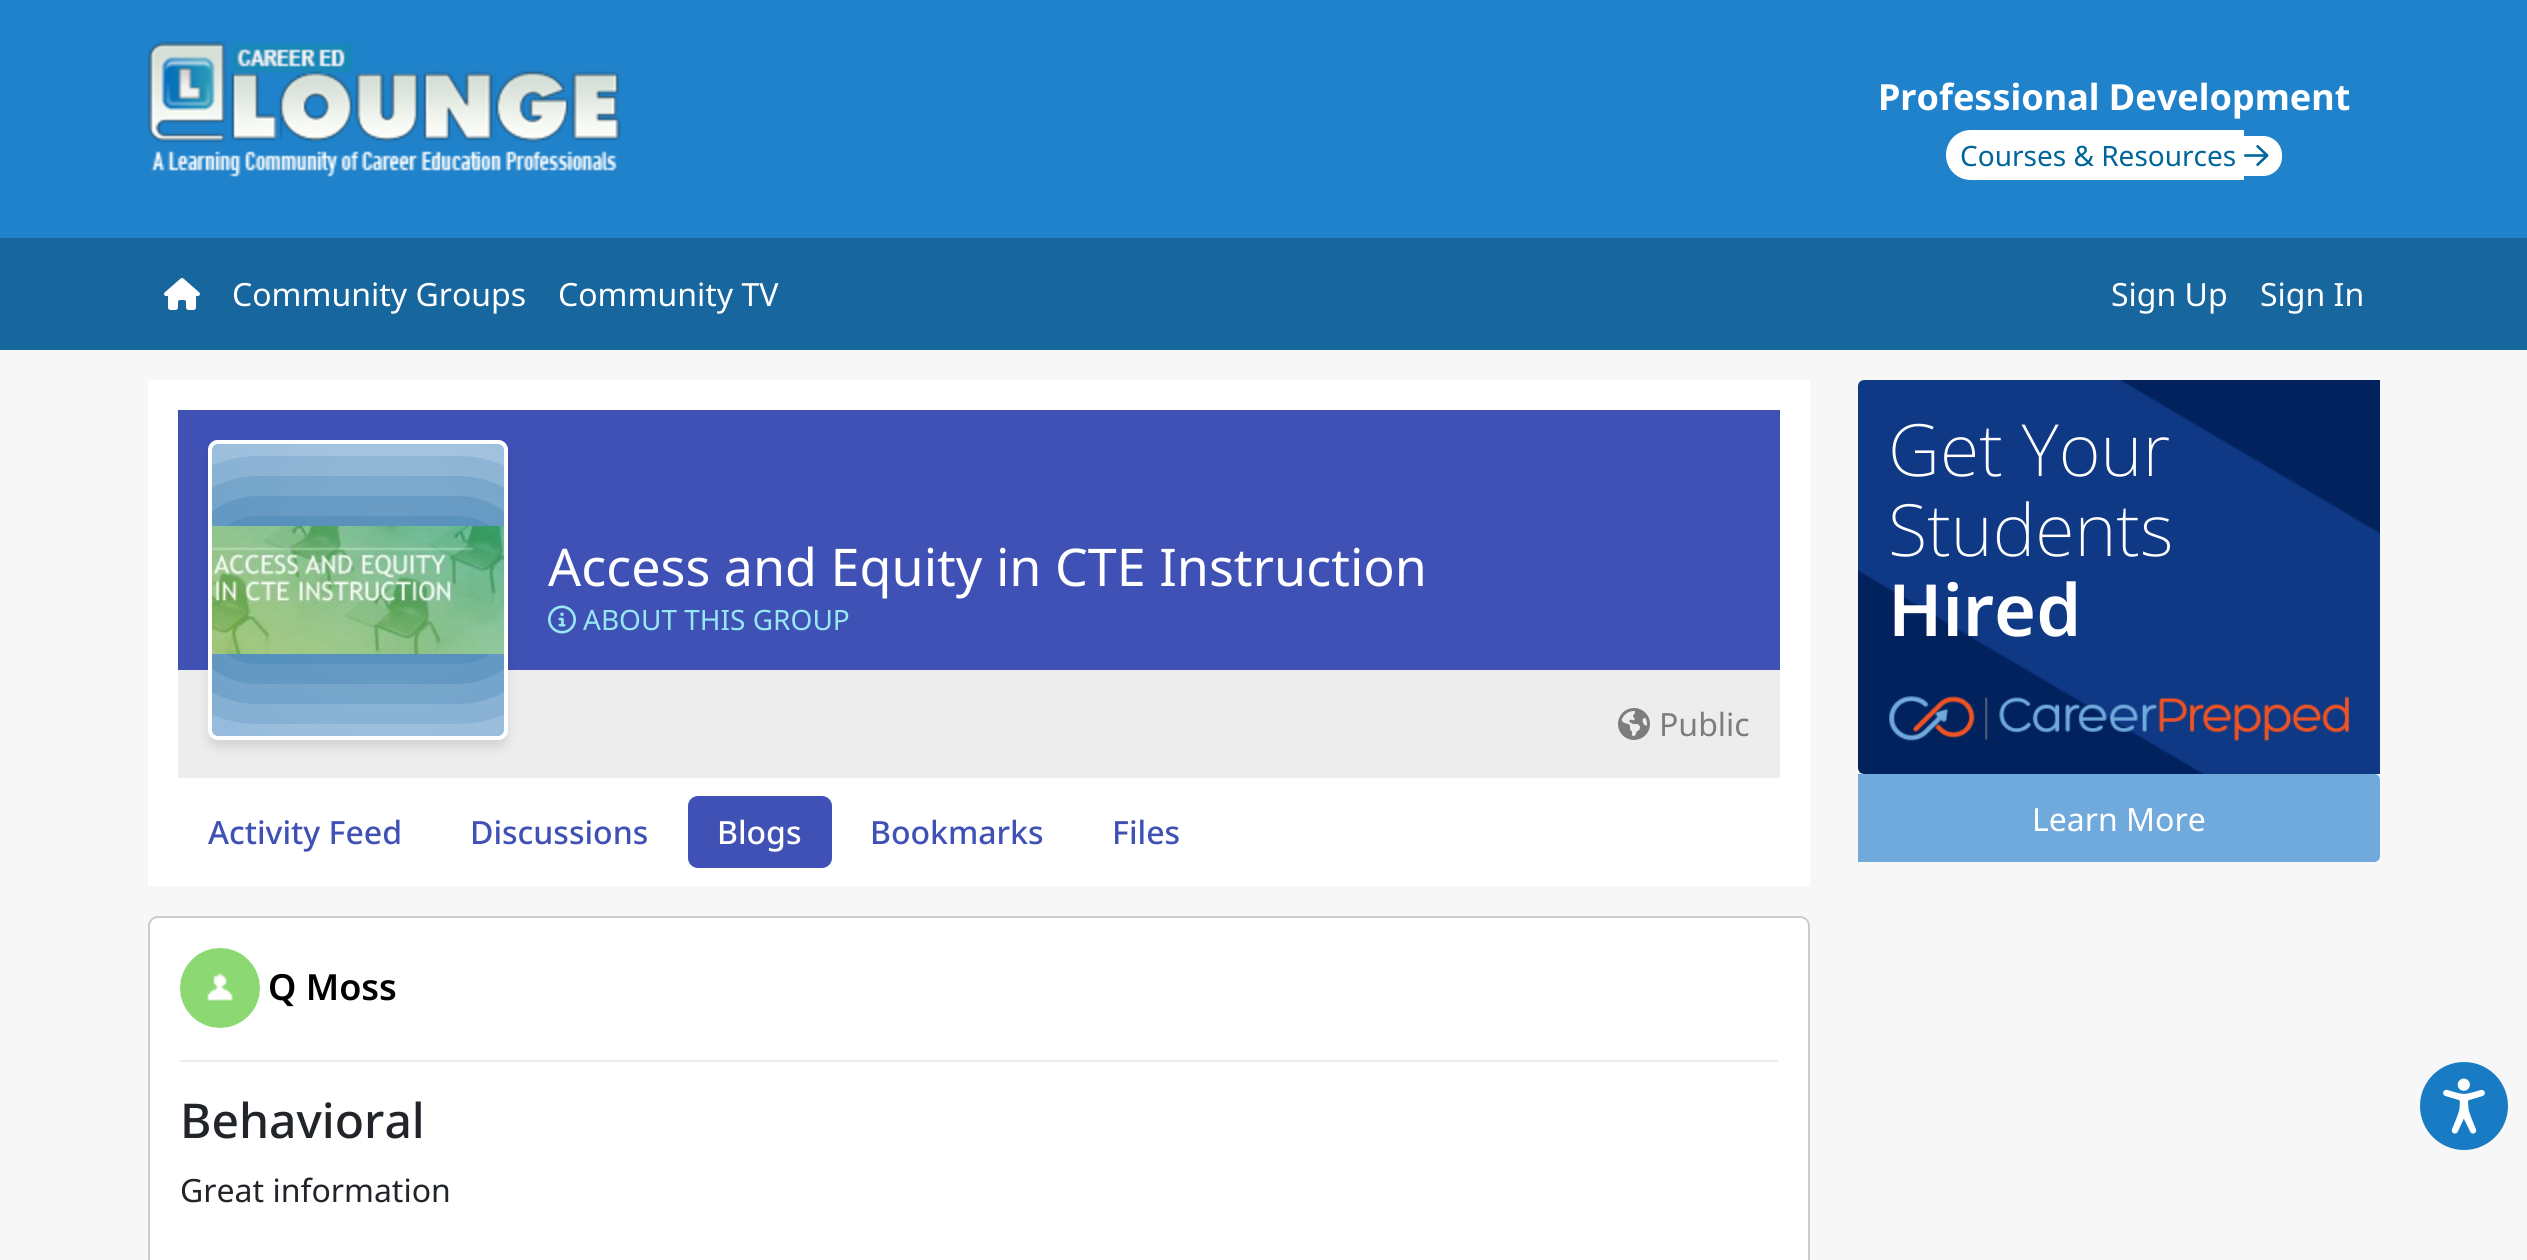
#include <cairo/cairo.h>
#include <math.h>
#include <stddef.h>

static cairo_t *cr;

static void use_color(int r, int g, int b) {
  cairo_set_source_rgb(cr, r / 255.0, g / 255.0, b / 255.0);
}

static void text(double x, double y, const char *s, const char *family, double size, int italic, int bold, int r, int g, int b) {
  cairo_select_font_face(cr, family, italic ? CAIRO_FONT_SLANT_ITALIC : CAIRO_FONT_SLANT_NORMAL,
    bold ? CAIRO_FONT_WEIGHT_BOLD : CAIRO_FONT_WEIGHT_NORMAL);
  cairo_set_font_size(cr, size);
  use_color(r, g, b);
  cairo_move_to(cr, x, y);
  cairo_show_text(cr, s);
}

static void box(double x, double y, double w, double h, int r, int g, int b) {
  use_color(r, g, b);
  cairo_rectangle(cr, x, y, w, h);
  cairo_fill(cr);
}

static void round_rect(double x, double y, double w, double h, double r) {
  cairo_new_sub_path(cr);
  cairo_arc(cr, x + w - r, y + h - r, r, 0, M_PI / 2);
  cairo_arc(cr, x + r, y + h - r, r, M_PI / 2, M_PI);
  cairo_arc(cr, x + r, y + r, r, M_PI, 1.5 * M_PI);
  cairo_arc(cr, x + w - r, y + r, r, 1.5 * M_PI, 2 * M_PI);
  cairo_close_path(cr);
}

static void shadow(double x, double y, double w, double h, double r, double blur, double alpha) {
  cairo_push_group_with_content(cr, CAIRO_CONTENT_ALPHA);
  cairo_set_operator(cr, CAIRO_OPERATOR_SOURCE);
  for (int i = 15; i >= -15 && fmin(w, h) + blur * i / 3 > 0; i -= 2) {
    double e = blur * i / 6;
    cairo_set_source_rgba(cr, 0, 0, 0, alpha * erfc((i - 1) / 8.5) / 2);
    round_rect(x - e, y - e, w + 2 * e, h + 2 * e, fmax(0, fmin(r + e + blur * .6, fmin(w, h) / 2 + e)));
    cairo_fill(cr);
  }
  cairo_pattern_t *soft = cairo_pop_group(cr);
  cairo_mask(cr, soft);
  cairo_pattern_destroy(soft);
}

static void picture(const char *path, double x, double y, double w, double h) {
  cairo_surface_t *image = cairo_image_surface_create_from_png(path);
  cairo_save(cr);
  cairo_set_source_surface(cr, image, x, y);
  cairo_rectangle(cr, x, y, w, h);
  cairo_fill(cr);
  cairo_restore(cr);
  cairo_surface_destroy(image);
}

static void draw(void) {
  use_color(247, 247, 247);
  cairo_paint(cr);
  box(0, 0, 2527, 238, 31, 130, 202);
  picture("img_01.png", 148, 41, 473, 136);
  use_color(255, 255, 255);
  cairo_new_path(cr);
  cairo_move_to(cr, 1971, 130);
  cairo_line_to(cr, 2244, 130);
  cairo_line_to(cr, 2244, 180);
  cairo_line_to(cr, 1971, 180);
  cairo_curve_to(cr, 1957, 180, 1946, 169, 1946, 155);
  cairo_curve_to(cr, 1946, 141, 1957, 130, 1971, 130);
  cairo_close_path(cr);
  cairo_fill(cr);
  cairo_new_path(cr);
  cairo_move_to(cr, 2244, 136);
  cairo_line_to(cr, 2263, 136);
  cairo_curve_to(cr, 2273.5, 136, 2282, 144.5, 2282, 155);
  cairo_line_to(cr, 2282, 157);
  cairo_curve_to(cr, 2282, 167.5, 2273.5, 176, 2263, 176);
  cairo_line_to(cr, 2244, 176);
  cairo_close_path(cr);
  cairo_fill(cr);
  picture("img_02.png", 2244, 145, 25, 21);
  box(0, 238, 2527, 112, 24, 102, 158);
  picture("img_03.png", 164, 278, 36, 32);
  box(148, 380, 1662, 506, 255, 255, 255);
  box(178, 410, 1602, 260, 63, 81, 181);
  box(178, 670, 1602, 108, 237, 237, 237);
  use_color(0, 0, 0);
  shadow(208, 448, 300, 300, 10, 5, 0.1);
  picture("img_04.png", 208, 440, 300, 300);
  round_rect(210, 442, 296, 296, 8);
  use_color(255, 255, 255);
  cairo_set_line_width(cr, 4);
  cairo_stroke(cr);
  picture("img_06.png", 548, 605, 28, 29);
  use_color(63, 81, 181);
  round_rect(688, 796, 144, 72, 10);
  cairo_fill(cr);
  cairo_save(cr);
  round_rect(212, 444, 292, 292, 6);
  cairo_clip(cr);
  use_color(24, 102, 158);
  shadow(152, 466, 412, 248, 70, 60, 0.8);
  cairo_restore(cr);
  picture("img_05.png", 212, 526, 292, 128);
  picture("img_07.png", 1618, 708, 32, 32);
  use_color(255, 255, 255);
  round_rect(149, 917, 1660, 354, 9);
  cairo_fill_preserve(cr);
  use_color(204, 204, 204);
  cairo_set_line_width(cr, 2);
  cairo_stroke(cr);
  box(180, 1060, 1598, 2, 237, 237, 237);
  picture("img_08.png", 180, 948, 80, 80);
  picture("img_09.png", 1858, 380, 522, 394);
  picture("img_10.png", 1889, 696, 460, 45);
  use_color(112, 170, 220);
  cairo_new_path(cr);
  cairo_move_to(cr, 1858, 774);
  cairo_line_to(cr, 2374, 774);
  cairo_curve_to(cr, 2377.5, 774, 2380, 776.5, 2380, 780);
  cairo_line_to(cr, 2380, 856);
  cairo_curve_to(cr, 2380, 859.5, 2377.5, 862, 2374, 862);
  cairo_line_to(cr, 1858, 862);
  cairo_close_path(cr);
  cairo_fill(cr);
  use_color(24, 123, 195);
  cairo_arc(cr, 2464, 1106, 44, 0, 2 * M_PI);
  cairo_fill(cr);
  picture("img_11.png", 2443, 1078, 42, 56);
  text(1878, 110, "Professional Development", "Noto Sans", 36, 0, 1, 255, 255, 255);
  text(1960, 166, "Courses & Resources", "Noto Sans", 28, 0, 0, 0, 102, 153);
  text(232, 306, "Community Groups", "Noto Sans", 32, 0, 0, 255, 255, 255);
  text(558, 306, "Community TV", "Noto Sans", 32, 0, 0, 255, 255, 255);
  text(2111, 306, "Sign Up", "Noto Sans", 32, 0, 0, 255, 255, 255);
  text(2260, 306, "Sign In", "Noto Sans", 32, 0, 0, 255, 255, 255);
  text(548, 586, "Access and Equity in CTE Instruction", "Noto Sans", 52, 0, 0, 255, 255, 255);
  text(583, 630, "ABOUT THIS GROUP", "Noto Sans", 28, 0, 0, 151, 232, 242);
  text(1659, 736, "Public", "Noto Sans", 32, 0, 0, 125, 125, 125);
  text(208, 844, "Activity Feed", "Noto Sans Medium", 32, 0, 0, 63, 81, 181);
  text(470, 844, "Discussions", "Noto Sans Medium", 32, 0, 0, 63, 81, 181);
  text(717, 844, "Blogs", "Noto Sans Medium", 32, 0, 0, 255, 255, 255);
  text(870, 844, "Bookmarks", "Noto Sans Medium", 32, 0, 0, 63, 81, 181);
  text(1112, 844, "Files", "Noto Sans Medium", 32, 0, 0, 63, 81, 181);
  text(268, 1000, "Q Moss", "Noto Sans SemiBold", 36, 0, 0, 0, 0, 0);
  text(180, 1138, "Behavioral", "Noto Sans Medium", 48, 0, 0, 33, 37, 41);
  text(180, 1202, "Great information", "Noto Sans", 32, 0, 0, 33, 37, 41);
  text(1888, 476, "Get Your", "Noto Sans ExtraLight", 72, 0, 0, 255, 255, 255);
  text(1888, 556, "Students", "Noto Sans ExtraLight", 72, 0, 0, 255, 255, 255);
  text(1888, 636, "Hired", "Noto Sans SemiBold", 72, 0, 0, 255, 255, 255);
  text(2032, 831, "Learn More", "Noto Sans", 32, 0, 0, 255, 255, 255);
}

int main(void) {
  cairo_surface_t *surface = cairo_image_surface_create(CAIRO_FORMAT_RGB24, 2527, 1260);
  cr = cairo_create(surface);
  cairo_font_options_t *options = cairo_font_options_create();
  cairo_font_options_set_hint_metrics(options, CAIRO_HINT_METRICS_OFF);
  cairo_font_options_set_hint_style(options, CAIRO_HINT_STYLE_NONE);
  cairo_set_font_options(cr, options);
  cairo_set_miter_limit(cr, 4);
  draw();
  cairo_surface_write_to_png(surface, "out.png");
  cairo_font_options_destroy(options);
  cairo_destroy(cr);
  cairo_surface_destroy(surface);
  return 0;
}
